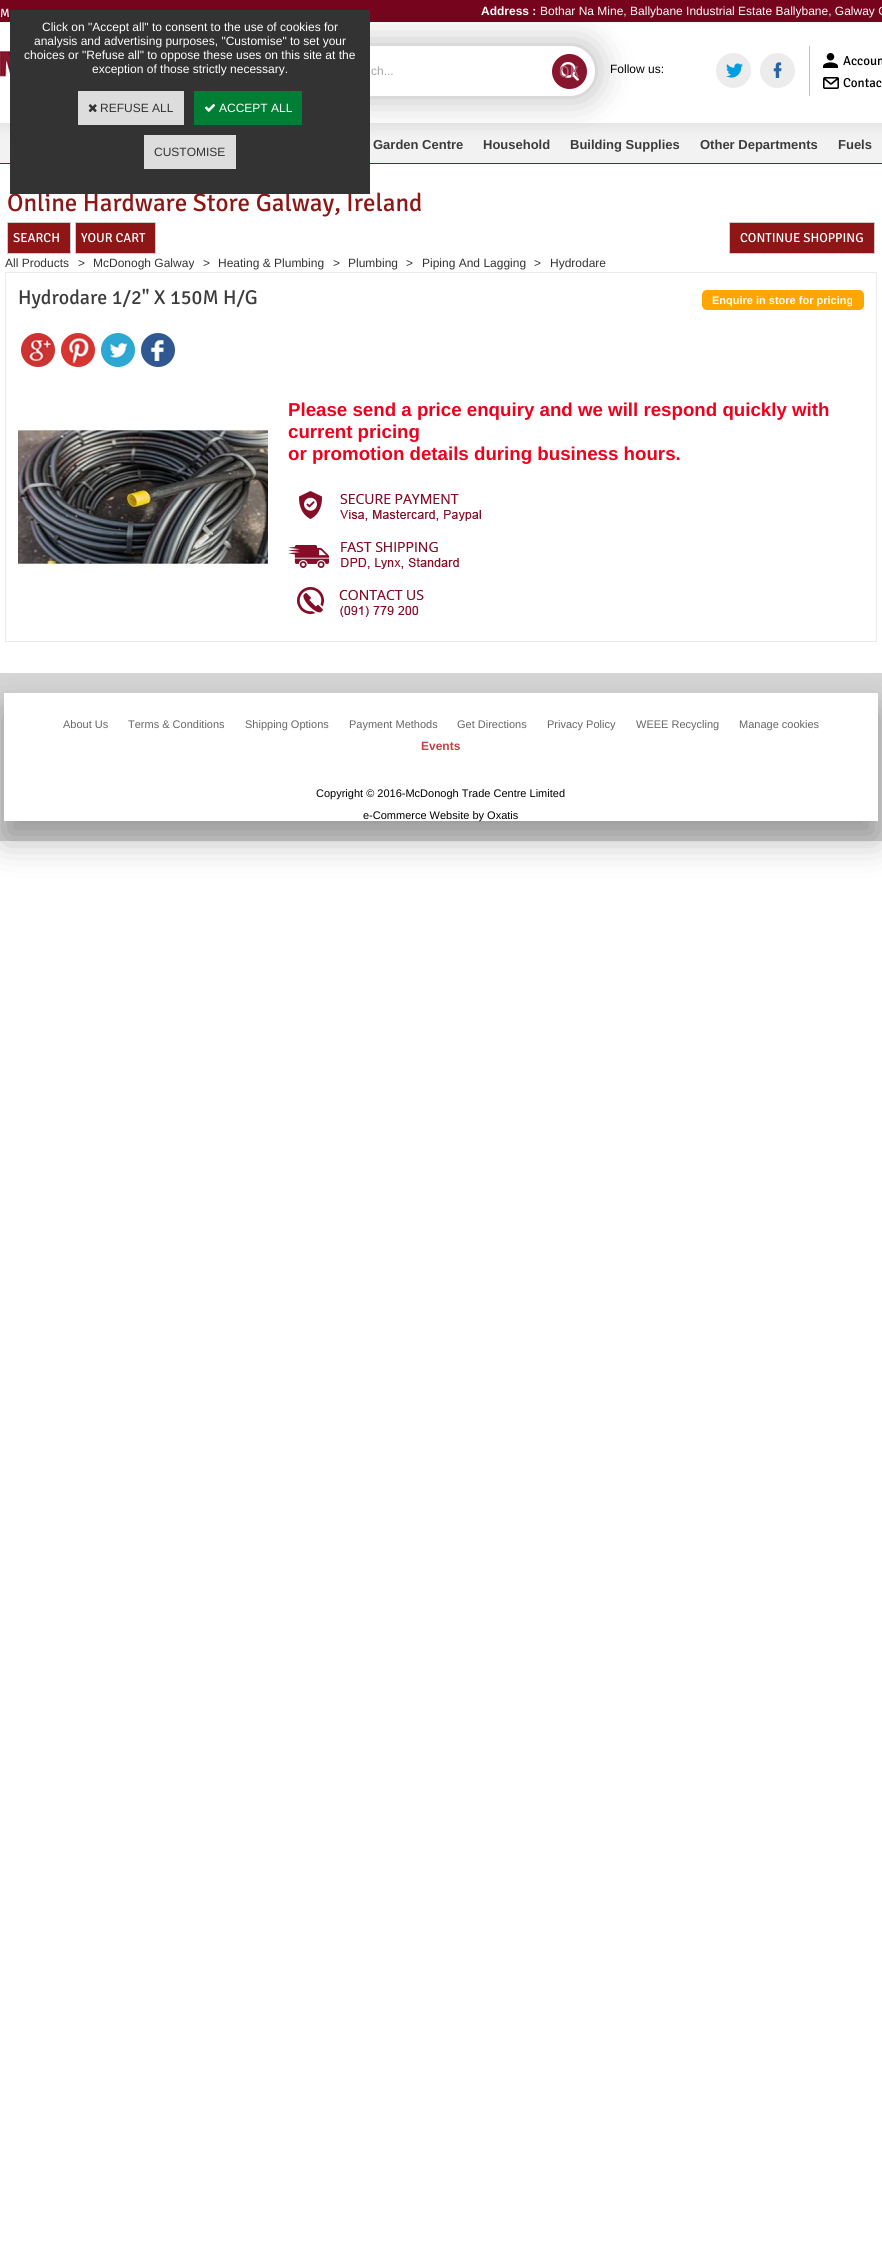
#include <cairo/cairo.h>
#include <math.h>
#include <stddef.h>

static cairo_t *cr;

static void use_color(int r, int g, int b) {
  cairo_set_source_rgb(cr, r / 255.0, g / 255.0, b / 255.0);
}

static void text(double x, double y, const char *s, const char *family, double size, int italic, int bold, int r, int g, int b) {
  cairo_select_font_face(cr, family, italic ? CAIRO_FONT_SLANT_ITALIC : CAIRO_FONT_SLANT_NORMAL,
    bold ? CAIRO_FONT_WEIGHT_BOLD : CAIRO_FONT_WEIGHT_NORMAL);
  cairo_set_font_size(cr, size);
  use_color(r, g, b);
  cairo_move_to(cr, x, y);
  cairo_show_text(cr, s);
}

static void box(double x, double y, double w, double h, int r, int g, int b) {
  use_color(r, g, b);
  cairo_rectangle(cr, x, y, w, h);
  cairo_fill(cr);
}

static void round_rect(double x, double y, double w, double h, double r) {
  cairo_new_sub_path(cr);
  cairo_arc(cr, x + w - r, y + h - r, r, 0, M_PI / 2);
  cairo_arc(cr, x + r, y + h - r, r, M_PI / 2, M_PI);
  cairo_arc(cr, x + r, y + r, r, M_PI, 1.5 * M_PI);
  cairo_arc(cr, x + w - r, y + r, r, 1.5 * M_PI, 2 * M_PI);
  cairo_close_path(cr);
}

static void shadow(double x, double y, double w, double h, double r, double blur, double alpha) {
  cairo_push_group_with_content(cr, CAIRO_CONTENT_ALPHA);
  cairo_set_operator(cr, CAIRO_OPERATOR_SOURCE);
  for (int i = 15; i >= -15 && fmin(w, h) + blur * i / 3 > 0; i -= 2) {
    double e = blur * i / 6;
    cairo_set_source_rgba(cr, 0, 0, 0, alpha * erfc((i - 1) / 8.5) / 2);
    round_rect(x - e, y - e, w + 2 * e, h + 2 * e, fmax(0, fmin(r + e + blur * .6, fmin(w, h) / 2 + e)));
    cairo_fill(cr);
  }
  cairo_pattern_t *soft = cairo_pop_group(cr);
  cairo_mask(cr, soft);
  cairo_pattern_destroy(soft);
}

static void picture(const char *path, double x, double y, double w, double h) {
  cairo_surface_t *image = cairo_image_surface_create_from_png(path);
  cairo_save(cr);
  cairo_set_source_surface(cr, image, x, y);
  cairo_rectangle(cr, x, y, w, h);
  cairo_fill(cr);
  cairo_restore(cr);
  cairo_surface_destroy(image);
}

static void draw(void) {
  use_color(255, 255, 255);
  cairo_paint(cr);
  picture("img_01.png", 0, 0, 882, 164);
  picture("img_02.png", 0, 51, 10, 26);
  use_color(0, 0, 0);
  shadow(335, 46, 260, 50, 25, 18.5, 0.3);
  use_color(255, 255, 255);
  round_rect(335, 46, 260, 50, 25);
  cairo_fill(cr);
  picture("img_03.png", 552, 54, 35, 35);
  picture("img_04.png", 716, 53, 35, 35);
  picture("img_05.png", 760, 53, 35, 35);
  box(809, 46, 1, 50, 194, 194, 194);
  picture("img_06.png", 823, 53, 15, 15);
  picture("img_07.png", 823, 77, 16, 12);
  use_color(142, 22, 22);
  cairo_rectangle(cr, 7.5, 222.5, 63, 31);
  cairo_fill_preserve(cr);
  use_color(204, 204, 204);
  cairo_set_line_width(cr, 1);
  cairo_stroke(cr);
  use_color(142, 22, 22);
  cairo_rectangle(cr, 75.5, 222.5, 80, 31);
  cairo_fill_preserve(cr);
  use_color(204, 204, 204);
  cairo_stroke(cr);
  use_color(142, 22, 22);
  cairo_rectangle(cr, 729.5, 222.5, 145, 31);
  cairo_fill_preserve(cr);
  use_color(204, 204, 204);
  cairo_stroke(cr);
  cairo_rectangle(cr, 5.5, 272.5, 871, 369);
  use_color(235, 235, 235);
  cairo_stroke(cr);
  picture("img_10.png", 21, 333, 34, 34);
  picture("img_11.png", 61, 333, 34, 34);
  picture("img_12.png", 101, 333, 34, 34);
  picture("img_13.png", 141, 333, 34, 34);
  use_color(255, 166, 0);
  round_rect(702, 290, 162, 20, 5);
  cairo_fill(cr);
  picture("img_14.png", 18, 429, 250, 144);
  picture("img_15.png", 299, 491, 182, 30);
  picture("img_16.png", 288, 542, 171, 27);
  picture("img_17.png", 297, 587, 127, 30);
  box(0, 673, 882, 168, 214, 214, 214);
  use_color(0, 0, 0);
  shadow(4, 711, 874, 128, 0, 18.5, 0.3);
  box(4, 693, 874, 128, 255, 255, 255);
  text(0, 17, "M", "Signika", 12, 0, 0, 255, 255, 255);
  text(481, 15, "Address :", "Liberation Sans", 12, 0, 1, 255, 255, 255);
  text(540, 15, "Bothar Na Mine, Ballybane Industrial Estate Ballybane, Galway C", "Liberation Sans", 12, 0, 0, 255, 255, 255);
  text(371, 75, "ch...", "Liberation Sans", 12, 0, 0, 166, 165, 165);
  text(559, 77, "OK", "Signika", 16, 0, 0, 174, 96, 113);
  text(610, 73, "Follow us:", "Liberation Sans", 12, 0, 0, 0, 0, 0);
  text(843, 65, "Accoun", "Signika", 13, 0, 0, 0, 0, 0);
  text(843, 87, "Contac", "Signika", 13, 0, 0, 0, 0, 0);
  text(373, 149, "Garden Centre", "Liberation Sans", 13, 0, 1, 60, 60, 60);
  text(483, 149, "Household", "Liberation Sans", 13, 0, 1, 60, 60, 60);
  text(570, 149, "Building Supplies", "Liberation Sans", 13, 0, 1, 60, 60, 60);
  text(700, 149, "Other Departments", "Liberation Sans", 13, 0, 1, 60, 60, 60);
  text(838, 149, "Fuels", "Liberation Sans", 13, 0, 1, 60, 60, 60);
  text(7, 211, "Online Hardware Store Galway, Ireland", "Signika", 25, 0, 0, 142, 22, 22);
  box(10, 10, 360, 184, 51, 51, 51);
  box(144, 135, 92, 34, 221, 221, 221);
  text(154, 156, "CUSTOMISE", "Liberation Sans", 12, 0, 0, 51, 51, 51);
  box(194, 91, 108, 34, 0, 126, 51);
  text(219, 112, "ACCEPT ALL", "Liberation Sans", 12, 0, 0, 255, 255, 255);
  picture("img_09.png", 204, 104, 12, 8);
  box(78, 91, 106, 34, 221, 221, 221);
  text(100, 112, "REFUSE ALL", "Liberation Sans", 12, 0, 0, 51, 51, 51);
  picture("img_08.png", 88, 104, 9, 9);
  text(92, 73, "exception of those strictly necessary.", "Liberation Sans", 12, 0, 0, 255, 255, 255);
  text(24, 59, "choices or \"Refuse all\" to oppose these uses on this site at the", "Liberation Sans", 12, 0, 0, 255, 255, 255);
  text(34, 45, "analysis and advertising purposes, \"Customise\" to set your", "Liberation Sans", 12, 0, 0, 255, 255, 255);
  text(42, 31, "Click on \"Accept all\" to consent to the use of cookies for", "Liberation Sans", 12, 0, 0, 255, 255, 255);
  text(13, 242, "SEARCH", "Signika", 13, 0, 0, 255, 255, 255);
  text(81, 242, "YOUR CART", "Signika", 13, 0, 0, 255, 255, 255);
  text(740, 242, "CONTINUE SHOPPING", "Signika", 13, 0, 0, 255, 255, 255);
  text(5, 267, "All Products", "Liberation Sans", 12, 0, 0, 51, 51, 51);
  text(78, 267, ">", "Liberation Sans", 12, 0, 0, 51, 51, 51);
  text(93, 267, "McDonogh Galway", "Liberation Sans", 12, 0, 0, 51, 51, 51);
  text(203, 267, ">", "Liberation Sans", 12, 0, 0, 51, 51, 51);
  text(218, 267, "Heating & Plumbing", "Liberation Sans", 12, 0, 0, 51, 51, 51);
  text(333, 267, ">", "Liberation Sans", 12, 0, 0, 51, 51, 51);
  text(348, 267, "Plumbing", "Liberation Sans", 12, 0, 0, 51, 51, 51);
  text(406, 267, ">", "Liberation Sans", 12, 0, 0, 51, 51, 51);
  text(422, 267, "Piping And Lagging", "Liberation Sans", 12, 0, 0, 51, 51, 51);
  text(534, 267, ">", "Liberation Sans", 12, 0, 0, 51, 51, 51);
  text(550, 267, "Hydrodare", "Liberation Sans", 12, 0, 0, 51, 51, 51);
  text(18, 304, "Hydrodare 1/2\" X 150M H/G", "Signika", 20, 0, 0, 60, 60, 60);
  text(712, 304, "Enquire in store for pricing", "Liberation Sans", 11, 0, 1, 255, 255, 255);
  text(288, 416, "Please send a price enquiry and we will respond quickly with", "Liberation Sans", 18.7, 0, 1, 239, 0, 27);
  text(288, 438, "current pricing", "Liberation Sans", 18.7, 0, 1, 239, 0, 27);
  text(288, 460, "or promotion details during business hours.", "Liberation Sans", 18.7, 0, 1, 239, 0, 27);
  text(63, 728, "About Us", "Liberation Sans", 11, 0, 0, 102, 102, 102);
  text(128, 728, "Terms & Conditions", "Liberation Sans", 11, 0, 0, 102, 102, 102);
  text(245, 728, "Shipping Options", "Liberation Sans", 11, 0, 0, 102, 102, 102);
  text(349, 728, "Payment Methods", "Liberation Sans", 11, 0, 0, 102, 102, 102);
  text(457, 728, "Get Directions", "Liberation Sans", 11, 0, 0, 102, 102, 102);
  text(547, 728, "Privacy Policy", "Liberation Sans", 11, 0, 0, 102, 102, 102);
  text(636, 728, "WEEE Recycling", "Liberation Sans", 11, 0, 0, 102, 102, 102);
  text(739, 728, "Manage cookies", "Liberation Sans", 11, 0, 0, 102, 102, 102);
  text(421, 750, "Events", "Liberation Sans", 12, 0, 1, 194, 65, 65);
  text(316, 797, "Copyright © 2016-McDonogh Trade Centre Limited", "Liberation Sans", 11, 0, 0, 0, 0, 0);
  text(363, 819, "e-Commerce Website by Oxatis", "Liberation Sans", 11, 0, 0, 0, 0, 0);
}

int main(void) {
  cairo_surface_t *surface = cairo_image_surface_create(CAIRO_FORMAT_RGB24, 882, 2257);
  cr = cairo_create(surface);
  cairo_font_options_t *options = cairo_font_options_create();
  cairo_font_options_set_hint_metrics(options, CAIRO_HINT_METRICS_OFF);
  cairo_font_options_set_hint_style(options, CAIRO_HINT_STYLE_NONE);
  cairo_set_font_options(cr, options);
  cairo_set_miter_limit(cr, 4);
  draw();
  cairo_surface_write_to_png(surface, "out.png");
  cairo_font_options_destroy(options);
  cairo_destroy(cr);
  cairo_surface_destroy(surface);
  return 0;
}
